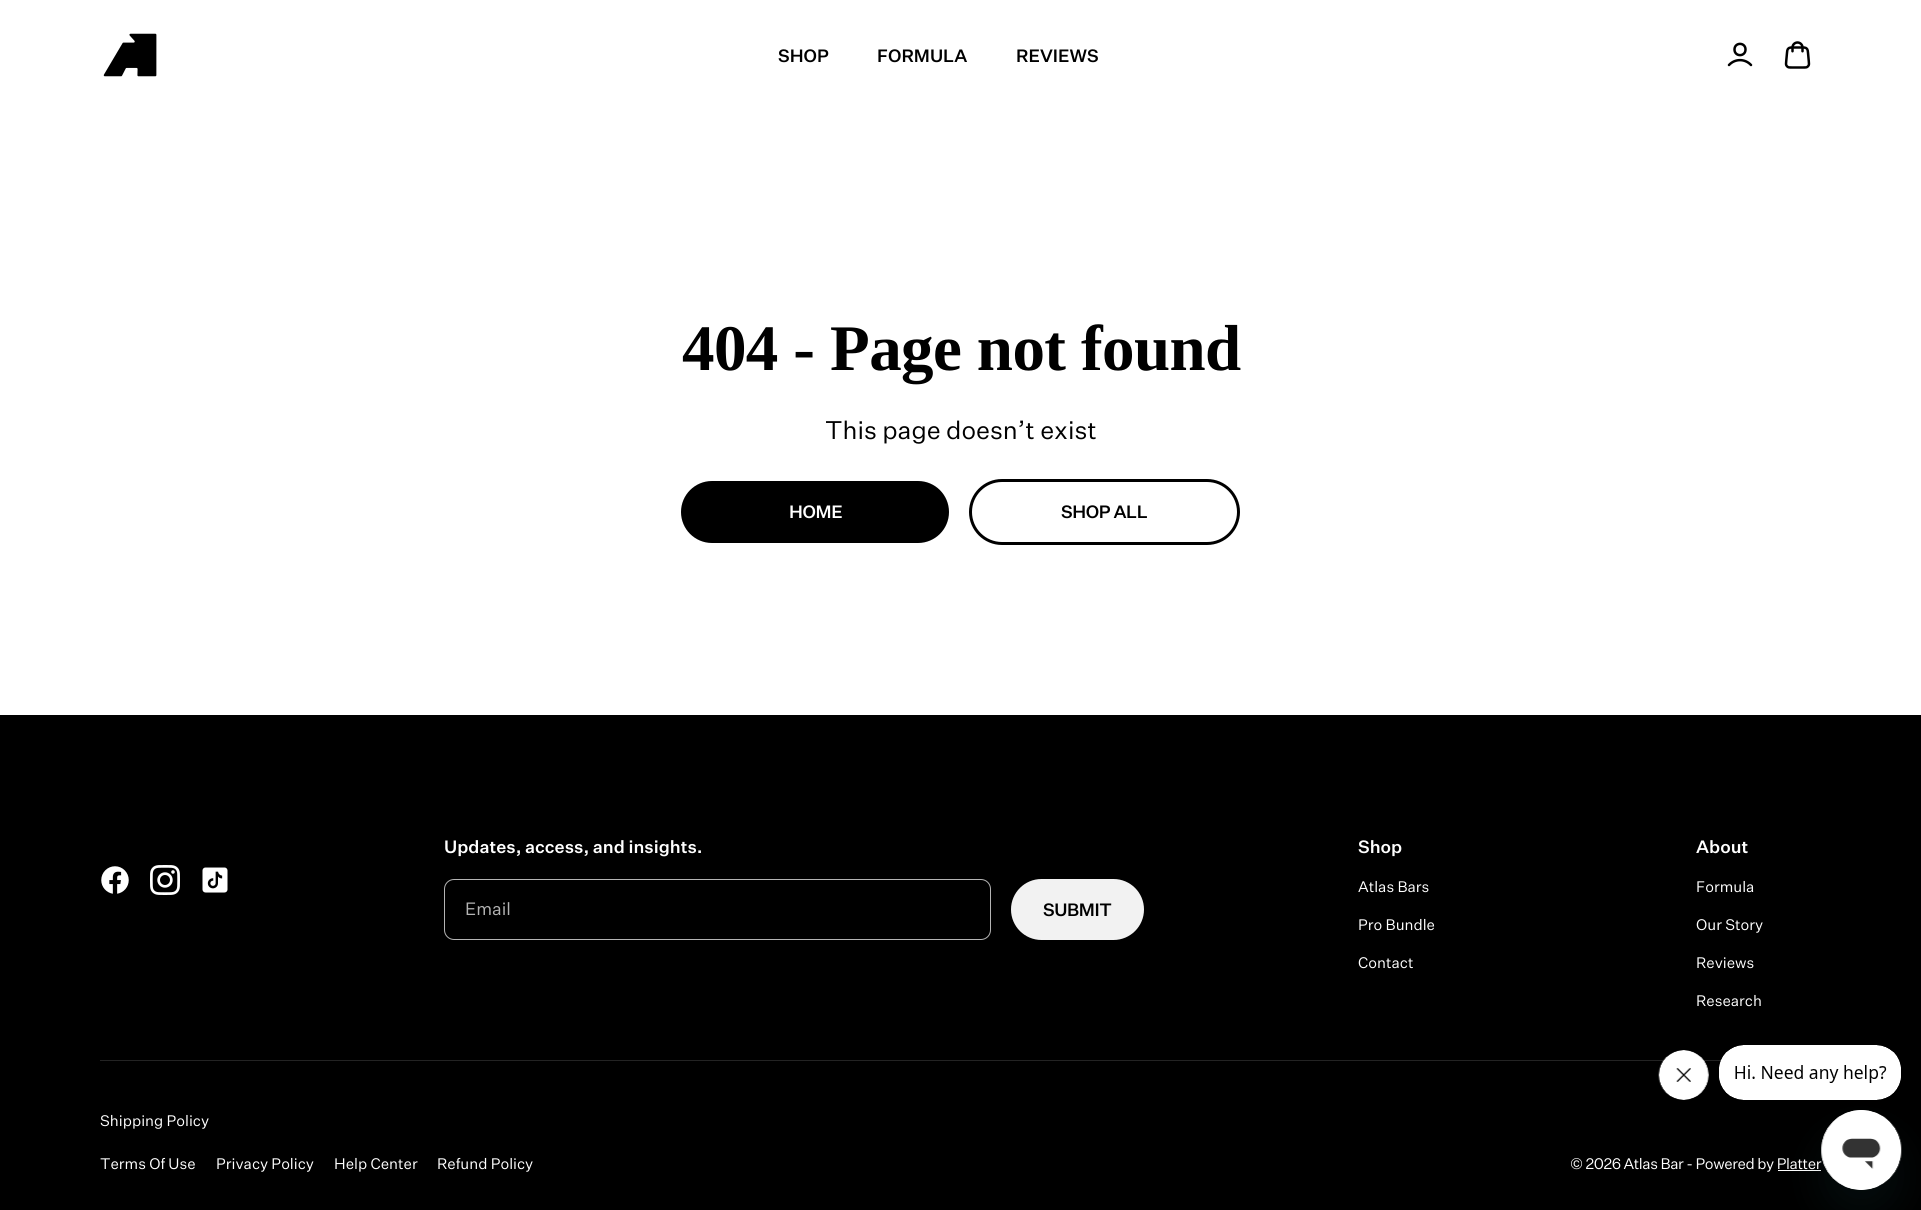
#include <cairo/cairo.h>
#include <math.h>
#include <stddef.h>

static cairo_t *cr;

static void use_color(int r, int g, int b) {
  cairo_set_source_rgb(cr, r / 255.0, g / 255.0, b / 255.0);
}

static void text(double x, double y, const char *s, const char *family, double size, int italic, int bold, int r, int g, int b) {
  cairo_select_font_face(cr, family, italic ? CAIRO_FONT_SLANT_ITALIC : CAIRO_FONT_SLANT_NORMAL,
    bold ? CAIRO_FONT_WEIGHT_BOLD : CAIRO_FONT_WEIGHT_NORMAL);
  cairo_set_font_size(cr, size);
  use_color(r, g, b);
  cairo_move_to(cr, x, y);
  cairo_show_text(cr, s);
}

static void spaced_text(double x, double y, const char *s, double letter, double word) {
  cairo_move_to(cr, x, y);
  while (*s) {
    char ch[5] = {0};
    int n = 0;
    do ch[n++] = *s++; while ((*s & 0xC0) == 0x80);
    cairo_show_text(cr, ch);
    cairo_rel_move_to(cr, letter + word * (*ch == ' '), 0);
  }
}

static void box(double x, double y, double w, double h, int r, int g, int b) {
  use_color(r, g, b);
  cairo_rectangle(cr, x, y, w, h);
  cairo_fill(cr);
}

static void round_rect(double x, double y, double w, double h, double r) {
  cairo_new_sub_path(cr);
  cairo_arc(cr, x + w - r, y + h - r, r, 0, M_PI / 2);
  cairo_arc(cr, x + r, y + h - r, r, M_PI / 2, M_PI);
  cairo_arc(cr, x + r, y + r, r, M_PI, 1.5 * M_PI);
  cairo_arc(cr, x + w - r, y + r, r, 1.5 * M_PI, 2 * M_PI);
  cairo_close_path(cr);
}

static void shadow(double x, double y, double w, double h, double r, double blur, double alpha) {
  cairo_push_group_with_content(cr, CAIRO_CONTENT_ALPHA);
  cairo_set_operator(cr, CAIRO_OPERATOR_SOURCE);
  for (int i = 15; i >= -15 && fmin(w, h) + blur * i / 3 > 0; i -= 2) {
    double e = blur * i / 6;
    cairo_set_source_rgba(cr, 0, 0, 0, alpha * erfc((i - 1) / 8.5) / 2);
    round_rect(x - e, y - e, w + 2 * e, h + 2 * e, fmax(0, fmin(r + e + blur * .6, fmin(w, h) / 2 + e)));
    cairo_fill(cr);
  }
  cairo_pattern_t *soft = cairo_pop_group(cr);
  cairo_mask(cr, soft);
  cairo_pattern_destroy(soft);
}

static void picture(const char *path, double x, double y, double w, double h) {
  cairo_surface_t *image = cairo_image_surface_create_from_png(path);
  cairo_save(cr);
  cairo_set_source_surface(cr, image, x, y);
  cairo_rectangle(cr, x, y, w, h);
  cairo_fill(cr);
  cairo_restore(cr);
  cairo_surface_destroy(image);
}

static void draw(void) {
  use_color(255, 255, 255);
  cairo_paint(cr);
  picture("img_01.png", 103, 33, 54, 44);
  cairo_new_path(cr);
  cairo_move_to(cr, 1729, 65);
  cairo_curve_to(cr, 1735, 58.5, 1745, 58.5, 1751, 65);
  cairo_move_to(cr, 1745.5, 49.5);
  cairo_curve_to(cr, 1745.5, 57, 1734.5, 57, 1734.5, 49.5);
  cairo_curve_to(cr, 1734.5, 42, 1745.5, 42, 1745.5, 49.5);
  cairo_close_path(cr);
  use_color(0, 0, 0);
  cairo_set_line_width(cr, 2.5);
  cairo_set_line_cap(cr, CAIRO_LINE_CAP_ROUND);
  cairo_set_line_join(cr, CAIRO_LINE_JOIN_ROUND);
  cairo_stroke(cr);
  picture("img_02.png", 1784, 41, 27, 28);
  round_rect(681, 481, 268, 62, 31);
  cairo_fill(cr);
  round_rect(970.5, 480.5, 268, 63, 31.5);
  cairo_set_line_width(cr, 3);
  cairo_set_line_cap(cr, CAIRO_LINE_CAP_BUTT);
  cairo_set_line_join(cr, CAIRO_LINE_JOIN_MITER);
  cairo_stroke(cr);
  box(0, 715, 1921, 495, 0, 0, 0);
  picture("img_03.png", 101, 866, 28, 28);
  picture("img_04.png", 150, 865, 30, 30);
  picture("img_05.png", 202, 867, 26, 26);
  round_rect(444.5, 879.5, 546, 60, 9.5);
  use_color(180, 180, 180);
  cairo_set_line_width(cr, 1);
  cairo_stroke(cr);
  use_color(242, 242, 242);
  round_rect(1011, 879, 133, 61, 30.5);
  cairo_fill(cr);
  box(100, 1060, 1621, 1, 35, 35, 35);
  box(1778, 1170, 43, 1, 255, 255, 255);
  picture("img_06.png", 1658, 1050, 51, 50);
  picture("img_07.png", 1719, 1045, 182, 55);
  use_color(23, 73, 77);
  shadow(1821, 1135, 80, 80, 40, 19, 0.15);
  picture("img_08.png", 1821, 1110, 81, 80);
  text(778, 62, "SHOP", "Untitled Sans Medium", 17.5, 0, 0, 0, 0, 0);
  text(877, 62, "FORMULA", "Untitled Sans Medium", 17.5, 0, 0, 0, 0, 0);
  text(1016, 62, "REVIEWS", "Untitled Sans Medium", 17.5, 0, 0, 0, 0, 0);
  cairo_select_font_face(cr, "Liberation Serif", CAIRO_FONT_SLANT_NORMAL, CAIRO_FONT_WEIGHT_BOLD);
  cairo_set_font_size(cr, 65);
  spaced_text(682, 370, "404 - Page not found", -0.6, 0);
  text(825, 439, "This page doesn’t exist", "Untitled Sans", 25, 0, 0, 0, 0, 0);
  cairo_select_font_face(cr, "Untitled Sans Medium", CAIRO_FONT_SLANT_NORMAL, CAIRO_FONT_WEIGHT_NORMAL);
  cairo_set_font_size(cr, 17.5);
  use_color(255, 255, 255);
  spaced_text(789, 518, "HOME", -0.4, 0);
  use_color(0, 0, 0);
  spaced_text(1061, 518, "SHOP ALL", -0.4, 0);
  text(444, 853, "Updates, access, and insights.", "Untitled Sans Medium", 17.5, 0, 0, 255, 255, 255);
  text(465, 915, "Email", "Untitled Sans", 17.5, 0, 0, 180, 180, 180);
  cairo_select_font_face(cr, "Untitled Sans Medium", CAIRO_FONT_SLANT_NORMAL, CAIRO_FONT_WEIGHT_NORMAL);
  use_color(0, 0, 0);
  spaced_text(1043, 916, "SUBMIT", -0.4, 0);
  text(1358, 853, "Shop", "Untitled Sans Medium", 17.5, 0, 0, 255, 255, 255);
  text(1358, 892, "Atlas Bars", "Untitled Sans", 15, 0, 0, 255, 255, 255);
  text(1358, 930, "Pro Bundle", "Untitled Sans", 15, 0, 0, 255, 255, 255);
  text(1358, 968, "Contact", "Untitled Sans", 15, 0, 0, 255, 255, 255);
  text(1696, 853, "About", "Untitled Sans Medium", 17.5, 0, 0, 255, 255, 255);
  text(1696, 892, "Formula", "Untitled Sans", 15, 0, 0, 255, 255, 255);
  text(1696, 930, "Our Story", "Untitled Sans", 15, 0, 0, 255, 255, 255);
  text(1696, 968, "Reviews", "Untitled Sans", 15, 0, 0, 255, 255, 255);
  text(1696, 1006, "Research", "Untitled Sans", 15, 0, 0, 255, 255, 255);
  text(100, 1126, "Shipping Policy", "Untitled Sans", 15, 0, 0, 255, 255, 255);
  text(100, 1169, "Terms Of Use", "Untitled Sans", 15, 0, 0, 255, 255, 255);
  text(216, 1169, "Privacy Policy", "Untitled Sans", 15, 0, 0, 255, 255, 255);
  text(334, 1169, "Help Center", "Untitled Sans", 15, 0, 0, 255, 255, 255);
  text(437, 1169, "Refund Policy", "Untitled Sans", 15, 0, 0, 255, 255, 255);
  spaced_text(1570, 1169, "© 2026 Atlas Bar - Powered by Platter", -0.4, 0);
}

int main(void) {
  cairo_surface_t *surface = cairo_image_surface_create(CAIRO_FORMAT_RGB24, 1921, 1210);
  cr = cairo_create(surface);
  cairo_font_options_t *options = cairo_font_options_create();
  cairo_font_options_set_hint_metrics(options, CAIRO_HINT_METRICS_OFF);
  cairo_font_options_set_hint_style(options, CAIRO_HINT_STYLE_NONE);
  cairo_set_font_options(cr, options);
  cairo_set_miter_limit(cr, 4);
  draw();
  cairo_surface_write_to_png(surface, "out.png");
  cairo_font_options_destroy(options);
  cairo_destroy(cr);
  cairo_surface_destroy(surface);
  return 0;
}
